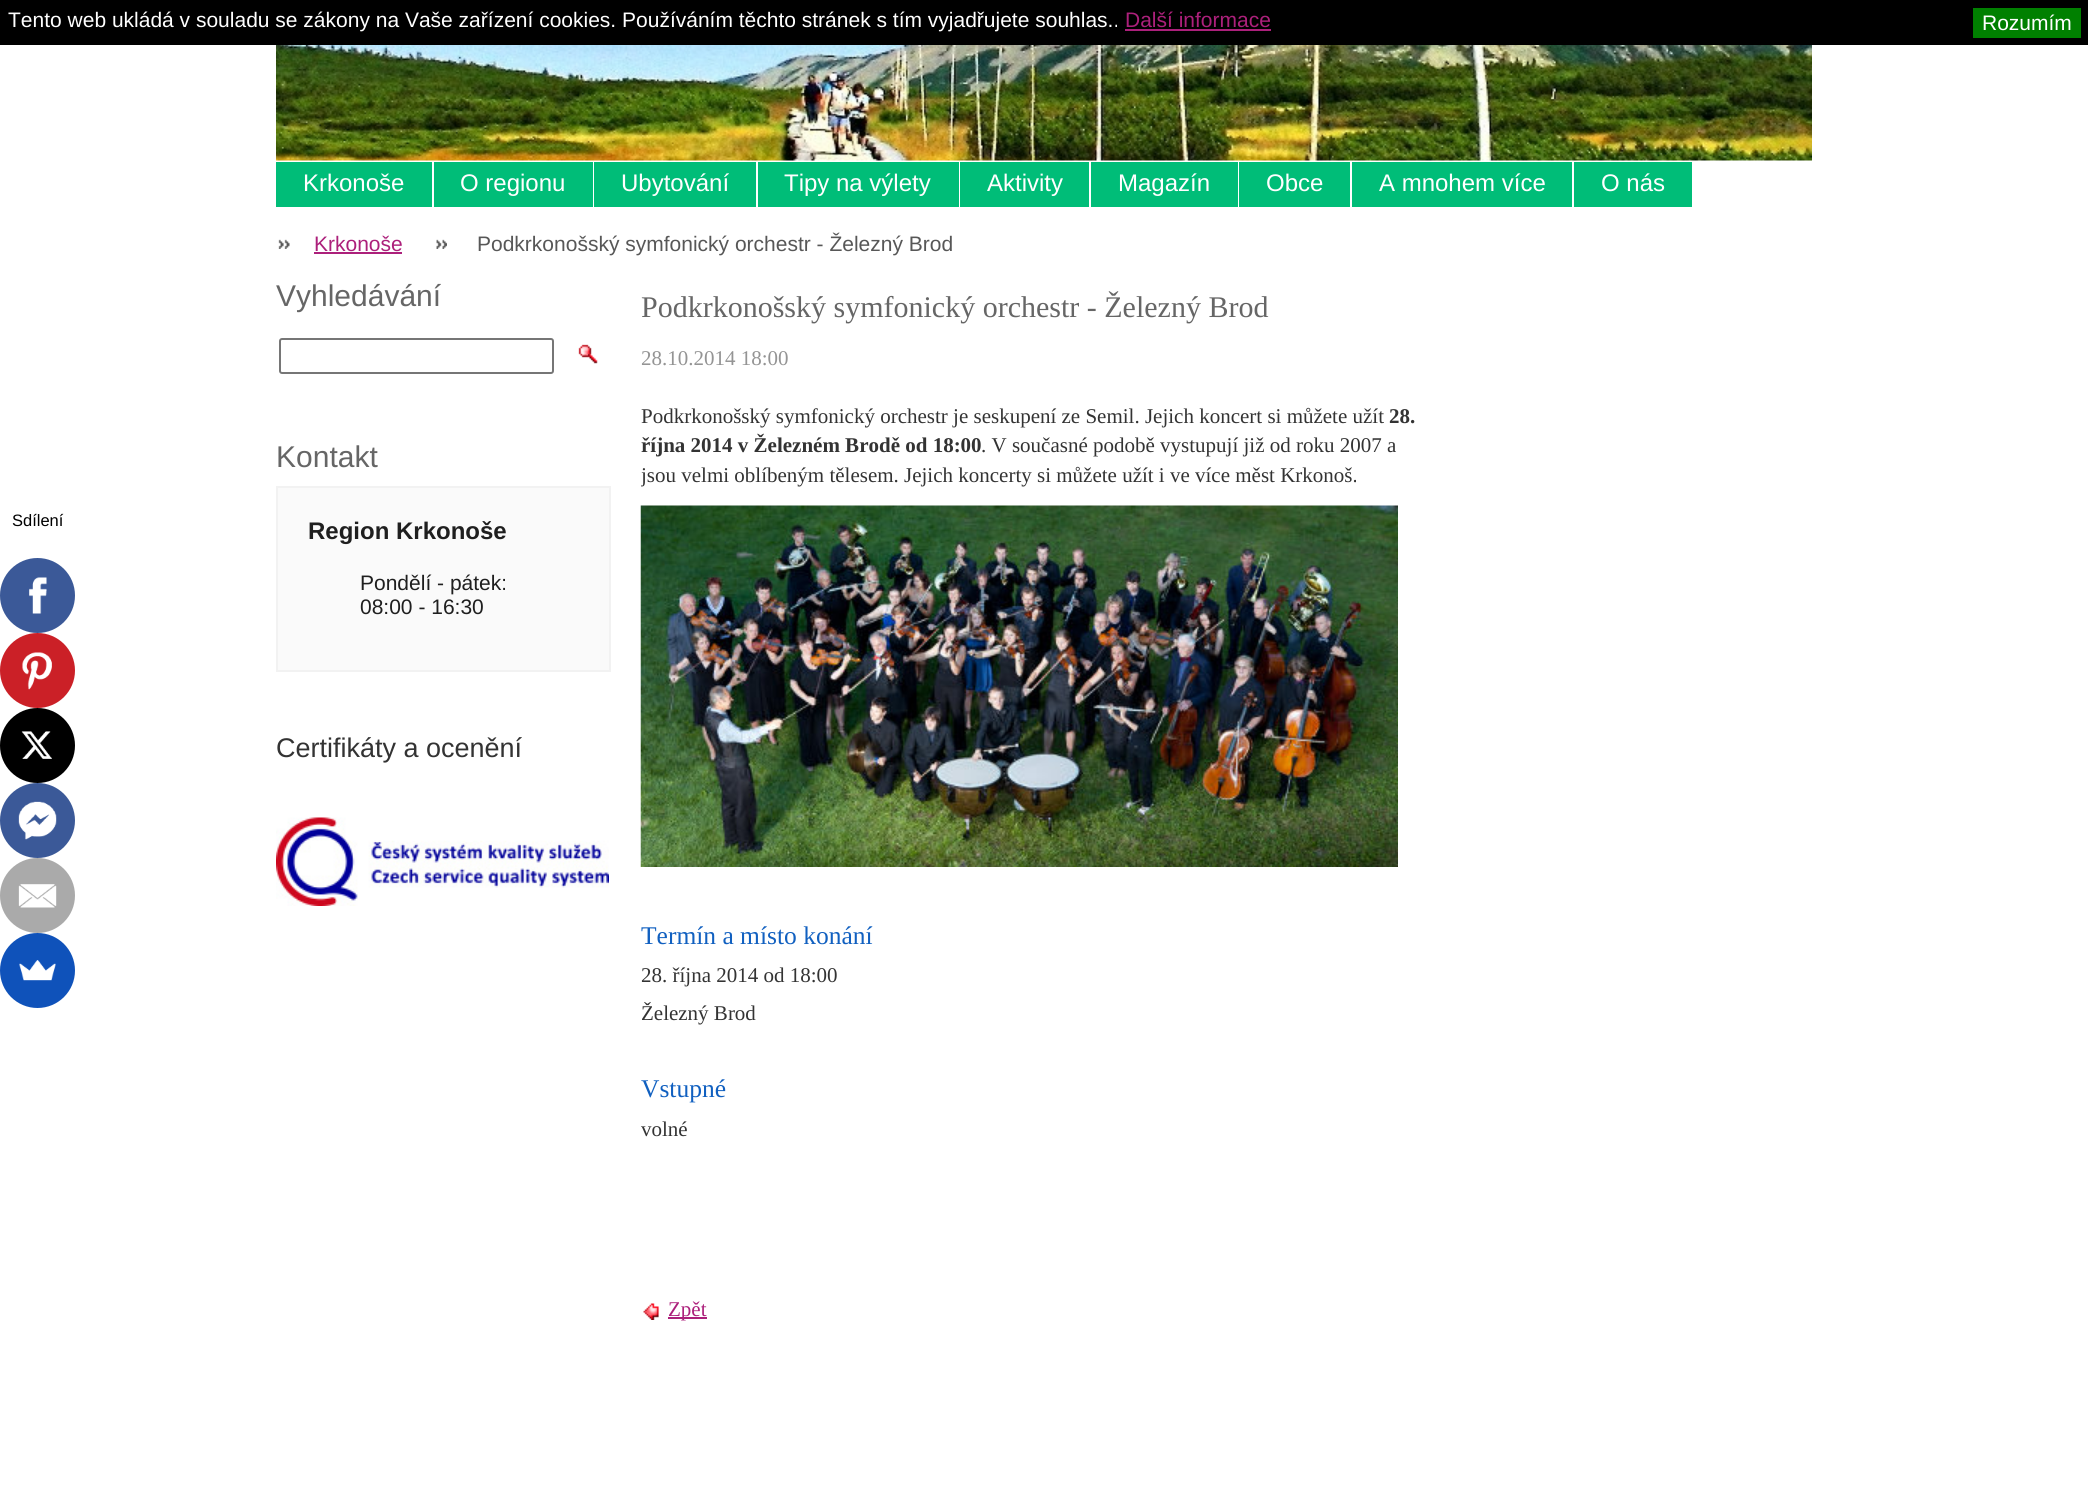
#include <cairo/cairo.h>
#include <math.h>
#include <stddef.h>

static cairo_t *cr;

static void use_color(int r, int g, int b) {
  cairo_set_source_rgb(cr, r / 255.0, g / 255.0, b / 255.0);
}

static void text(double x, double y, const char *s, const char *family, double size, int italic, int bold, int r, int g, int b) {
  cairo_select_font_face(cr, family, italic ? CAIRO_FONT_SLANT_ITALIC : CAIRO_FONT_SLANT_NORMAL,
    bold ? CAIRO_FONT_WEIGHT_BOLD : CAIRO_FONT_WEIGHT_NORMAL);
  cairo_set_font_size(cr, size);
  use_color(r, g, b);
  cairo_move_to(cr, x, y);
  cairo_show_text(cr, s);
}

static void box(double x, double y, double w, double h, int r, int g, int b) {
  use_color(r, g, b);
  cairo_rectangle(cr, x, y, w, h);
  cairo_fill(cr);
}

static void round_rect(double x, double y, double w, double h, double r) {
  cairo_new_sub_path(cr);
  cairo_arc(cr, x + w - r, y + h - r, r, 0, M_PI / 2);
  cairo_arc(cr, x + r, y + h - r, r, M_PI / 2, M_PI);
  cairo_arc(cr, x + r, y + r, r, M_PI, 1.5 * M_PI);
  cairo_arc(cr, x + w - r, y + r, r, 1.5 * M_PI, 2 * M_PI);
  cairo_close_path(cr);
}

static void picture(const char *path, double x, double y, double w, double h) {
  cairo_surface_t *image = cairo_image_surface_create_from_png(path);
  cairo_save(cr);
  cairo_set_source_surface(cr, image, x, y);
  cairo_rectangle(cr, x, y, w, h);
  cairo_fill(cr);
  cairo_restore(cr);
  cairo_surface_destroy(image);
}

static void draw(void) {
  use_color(255, 255, 255);
  cairo_paint(cr);
  box(0, 0, 2088, 45, 0, 0, 0);
  box(1125, 29, 146, 2, 172, 32, 123);
  box(1973, 8, 108, 30, 0, 128, 0);
  use_color(59, 89, 152);
  cairo_arc(cr, 37.5, 595.5, 37.5, 0, 2 * M_PI);
  cairo_fill(cr);
  picture("img_01.png", 29, 577, 18, 37);
  use_color(203, 32, 39);
  cairo_arc(cr, 37.5, 670.5, 37.5, 0, 2 * M_PI);
  cairo_fill(cr);
  picture("img_02.png", 22, 652, 30, 38);
  use_color(0, 0, 0);
  cairo_arc(cr, 37.5, 745.5, 37.5, 0, 2 * M_PI);
  cairo_fill(cr);
  picture("img_03.png", 21, 731, 31, 28);
  use_color(59, 89, 152);
  cairo_arc(cr, 37.5, 820.5, 37.5, 0, 2 * M_PI);
  cairo_fill(cr);
  picture("img_04.png", 18, 801, 39, 39);
  use_color(170, 170, 170);
  cairo_arc(cr, 37.5, 895.5, 37.5, 0, 2 * M_PI);
  cairo_fill(cr);
  picture("img_05.png", 18, 884, 39, 24);
  use_color(15, 82, 186);
  cairo_arc(cr, 37.5, 970.5, 37.5, 0, 2 * M_PI);
  cairo_fill(cr);
  picture("img_06.png", 19, 960, 37, 21);
  picture("img_07.png", 276, 45, 1536, 116);
  box(276, 162, 156, 45, 0, 189, 120);
  box(434, 162, 159, 45, 0, 189, 120);
  box(594, 162, 162, 45, 0, 189, 120);
  box(758, 162, 201, 45, 0, 189, 120);
  box(960, 162, 129, 45, 0, 189, 120);
  box(1091, 162, 147, 45, 0, 189, 120);
  box(1239, 162, 111, 45, 0, 189, 120);
  box(1352, 162, 220, 45, 0, 189, 120);
  box(1574, 162, 118, 45, 0, 189, 120);
  picture("img_08.png", 278, 239, 12, 10);
  box(314, 252, 88, 2, 172, 32, 123);
  picture("img_09.png", 436, 239, 11, 10);
  round_rect(280, 339, 273, 34, 2);
  use_color(118, 118, 118);
  cairo_stroke(cr);
  picture("img_10.png", 578, 344, 20, 20);
  use_color(250, 250, 250);
  cairo_rectangle(cr, 277, 487, 333, 184);
  cairo_fill_preserve(cr);
  use_color(242, 242, 242);
  cairo_stroke(cr);
  picture("img_11.png", 276, 817, 333, 89);
  picture("img_12.png", 640, 505, 758, 362);
  picture("img_13.png", 643, 1303, 16, 17);
  box(668, 1317, 39, 2, 172, 32, 123);
  text(8, 27, "Tento web ukládá v souladu se zákony na Vaše zařízení cookies. Používáním těchto stránek s tím vyjadřujete souhlas..", "Liberation Sans", 21, 0, 0, 255, 255, 255);
  text(1125, 27, "Další informace", "Liberation Sans", 21, 0, 0, 172, 32, 123);
  text(1982, 30, "Rozumím", "Liberation Sans", 21, 0, 0, 255, 255, 255);
  text(12, 526, "Sdílení", "Liberation Sans", 16.5, 0, 0, 0, 0, 0);
  text(303, 191, "Krkonoše", "Liberation Sans", 24, 0, 0, 255, 255, 255);
  text(460, 191, "O regionu", "Liberation Sans", 24, 0, 0, 255, 255, 255);
  text(621, 191, "Ubytování", "Liberation Sans", 24, 0, 0, 255, 255, 255);
  text(784, 191, "Tipy na výlety", "Liberation Sans", 24, 0, 0, 255, 255, 255);
  text(987, 191, "Aktivity", "Liberation Sans", 24, 0, 0, 255, 255, 255);
  text(1118, 191, "Magazín", "Liberation Sans", 24, 0, 0, 255, 255, 255);
  text(1266, 191, "Obce", "Liberation Sans", 24, 0, 0, 255, 255, 255);
  text(1379, 191, "A mnohem více", "Liberation Sans", 24, 0, 0, 255, 255, 255);
  text(1601, 191, "O nás", "Liberation Sans", 24, 0, 0, 255, 255, 255);
  text(314, 251, "Krkonoše", "Liberation Sans", 21, 0, 0, 172, 32, 123);
  text(477, 251, "Podkrkonošský symfonický orchestr - Železný Brod", "Liberation Sans", 21, 0, 0, 87, 87, 87);
  text(276, 306, "Vyhledávání", "Liberation Sans", 30, 0, 0, 102, 102, 102);
  text(276, 467, "Kontakt", "Liberation Sans", 30, 0, 0, 102, 102, 102);
  text(308, 539, "Region Krkonoše", "Liberation Sans", 24, 0, 1, 31, 31, 31);
  text(360, 590, "Pondělí - pátek:", "Liberation Sans", 21, 0, 0, 31, 31, 31);
  text(360, 614, "08:00 - 16:30", "Liberation Sans", 21, 0, 0, 31, 31, 31);
  text(276, 757, "Certifikáty a ocenění", "Liberation Sans", 27, 0, 0, 51, 51, 51);
  text(641, 317, "Podkrkonošský symfonický orchestr - Železný Brod", "Liberation Serif", 30, 0, 0, 102, 102, 102);
  text(641, 365, "28.10.2014 18:00", "Liberation Serif", 21, 0, 0, 148, 148, 148);
  text(641, 423, "Podkrkonošský symfonický orchestr je seskupení ze Semil. Jejich koncert si můžete užít", "Liberation Serif", 21, 0, 0, 51, 51, 51);
  text(1389, 423, "28.", "Liberation Serif", 21, 0, 1, 51, 51, 51);
  text(641, 452, "října 2014 v Železném Brodě od 18:00", "Liberation Serif", 21, 0, 1, 51, 51, 51);
  text(981, 452, ". V současné podobě vystupují již od roku 2007 a", "Liberation Serif", 21, 0, 0, 51, 51, 51);
  cairo_save(cr);
  cairo_rectangle(cr, 641, 290, 790, 1063);
  cairo_clip(cr);
  text(641, 482, "jsou velmi oblíbeným tělesem. Jejich koncerty si můžete užít i ve více měst Krkonoš.", "Liberation Serif", 21, 0, 0, 51, 51, 51);
  cairo_restore(cr);
  text(641, 944, "Termín a místo konání", "Liberation Serif", 25.5, 0, 0, 17, 96, 192);
  text(641, 982, "28. října 2014 od 18:00", "Liberation Serif", 21, 0, 0, 51, 51, 51);
  text(641, 1020, "Železný Brod", "Liberation Serif", 21, 0, 0, 51, 51, 51);
  text(641, 1097, "Vstupné", "Liberation Serif", 25.5, 0, 0, 17, 96, 192);
  text(641, 1136, "volné", "Liberation Serif", 21, 0, 0, 51, 51, 51);
  text(668, 1316, "Zpět", "Liberation Serif", 21, 0, 0, 172, 32, 123);
}

int main(void) {
  cairo_surface_t *surface = cairo_image_surface_create(CAIRO_FORMAT_RGB24, 2088, 1490);
  cr = cairo_create(surface);
  cairo_font_options_t *options = cairo_font_options_create();
  cairo_font_options_set_hint_metrics(options, CAIRO_HINT_METRICS_OFF);
  cairo_font_options_set_hint_style(options, CAIRO_HINT_STYLE_NONE);
  cairo_set_font_options(cr, options);
  cairo_set_miter_limit(cr, 4);
  draw();
  cairo_surface_write_to_png(surface, "out.png");
  cairo_font_options_destroy(options);
  cairo_destroy(cr);
  cairo_surface_destroy(surface);
  return 0;
}
